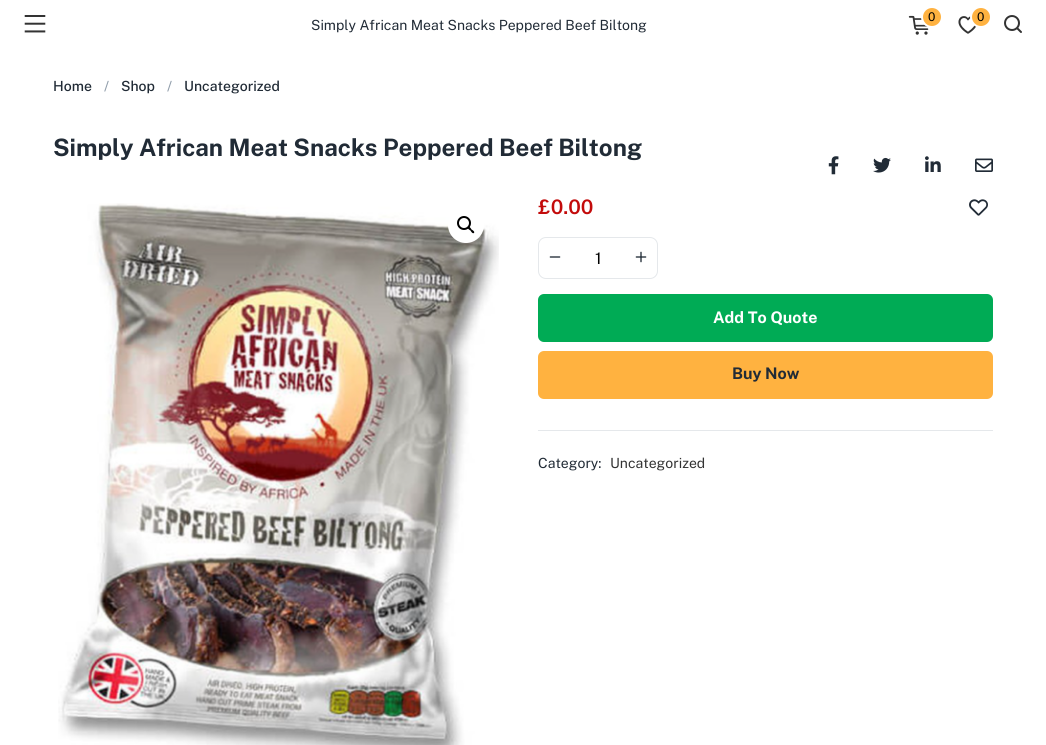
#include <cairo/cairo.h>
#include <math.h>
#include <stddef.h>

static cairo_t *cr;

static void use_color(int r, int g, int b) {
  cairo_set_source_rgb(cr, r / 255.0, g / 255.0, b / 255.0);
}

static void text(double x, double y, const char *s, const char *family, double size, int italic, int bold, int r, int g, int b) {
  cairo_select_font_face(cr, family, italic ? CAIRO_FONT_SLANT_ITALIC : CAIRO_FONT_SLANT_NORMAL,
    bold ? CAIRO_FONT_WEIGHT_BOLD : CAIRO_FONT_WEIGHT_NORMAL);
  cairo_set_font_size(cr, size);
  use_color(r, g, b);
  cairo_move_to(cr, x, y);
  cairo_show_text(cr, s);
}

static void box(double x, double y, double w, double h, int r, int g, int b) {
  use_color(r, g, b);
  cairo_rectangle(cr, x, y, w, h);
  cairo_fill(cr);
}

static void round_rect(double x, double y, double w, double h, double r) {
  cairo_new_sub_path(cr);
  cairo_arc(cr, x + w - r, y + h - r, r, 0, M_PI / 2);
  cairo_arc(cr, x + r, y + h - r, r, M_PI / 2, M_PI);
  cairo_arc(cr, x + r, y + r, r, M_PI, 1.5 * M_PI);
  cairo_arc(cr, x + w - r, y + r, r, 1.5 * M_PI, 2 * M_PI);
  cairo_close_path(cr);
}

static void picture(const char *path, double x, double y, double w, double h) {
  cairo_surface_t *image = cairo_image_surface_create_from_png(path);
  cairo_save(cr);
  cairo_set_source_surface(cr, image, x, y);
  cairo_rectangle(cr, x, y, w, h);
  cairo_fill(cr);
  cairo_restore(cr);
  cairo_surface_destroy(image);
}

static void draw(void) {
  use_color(255, 255, 255);
  cairo_paint(cr);
  picture("img_01.png", 24, 15, 22, 18);
  picture("img_02.png", 908, 15, 21, 20);
  use_color(255, 178, 64);
  cairo_arc(cr, 932, 17, 10, 0, 2 * M_PI);
  cairo_fill_preserve(cr);
  use_color(255, 255, 255);
  cairo_stroke(cr);
  picture("img_03.png", 958, 16, 19, 18);
  use_color(255, 178, 64);
  cairo_arc(cr, 981, 17, 10, 0, 2 * M_PI);
  cairo_fill_preserve(cr);
  use_color(255, 255, 255);
  cairo_stroke(cr);
  picture("img_04.png", 1004, 15, 18, 18);
  picture("img_05.png", 828, 156, 11, 19);
  picture("img_06.png", 873, 157, 18, 16);
  picture("img_07.png", 925, 156, 16, 16);
  picture("img_08.png", 975, 158, 18, 14);
  picture("img_09.png", 58, 203, 441, 542);
  cairo_arc(cr, 466, 225, 18, 0, 2 * M_PI);
  cairo_fill(cr);
  cairo_arc(cr, 464, 223, 6, 0, 2 * M_PI);
  use_color(0, 0, 0);
  cairo_stroke(cr);
  cairo_new_path(cr);
  cairo_move_to(cr, 468, 227);
  cairo_curve_to(cr, 469.5, 226, 471, 228.5, 471.5, 229.5);
  cairo_curve_to(cr, 472.5, 230, 475, 231.5, 474, 233);
  cairo_curve_to(cr, 472.5, 234, 471, 231.5, 470.5, 230.5);
  cairo_curve_to(cr, 469.5, 230, 467, 228.5, 468, 227);
  cairo_close_path(cr);
  cairo_fill(cr);
  picture("img_10.png", 969, 199, 19, 17);
  round_rect(538.5, 237.5, 119, 41, 7.5);
  use_color(229, 232, 235);
  cairo_set_line_width(cr, 1);
  cairo_stroke(cr);
  picture("img_11.png", 549, 256, 12, 2);
  picture("img_12.png", 635, 251, 12, 12);
  use_color(0, 171, 85);
  round_rect(538, 294, 455, 48, 6);
  cairo_fill(cr);
  use_color(255, 178, 64);
  round_rect(538, 351, 455, 48, 6);
  cairo_fill(cr);
  box(538, 430, 455, 1, 229, 232, 235);
  text(311, 30, "Simply African Meat Snacks Peppered Beef Biltong", "Public Sans", 14, 0, 0, 33, 43, 54);
  text(928, 21, "0", "Public Sans", 12, 0, 0, 0, 0, 0);
  text(977, 21, "0", "Public Sans", 12, 0, 0, 0, 0, 0);
  text(53, 91, "Home", "Public Sans Medium", 14, 0, 0, 33, 43, 54);
  text(104, 91, "/", "Public Sans Medium", 14, 0, 0, 145, 158, 171);
  text(121, 91, "Shop", "Public Sans Medium", 14, 0, 0, 33, 43, 54);
  text(167, 91, "/", "Public Sans Medium", 14, 0, 0, 145, 158, 171);
  text(184, 91, "Uncategorized", "Public Sans Medium", 14, 0, 0, 33, 43, 54);
  text(53, 156, "Simply African Meat Snacks Peppered Beef Biltong", "Public Sans", 24, 0, 1, 33, 43, 54);
  text(538, 214, "£0.00", "Public Sans SemiBold", 20, 0, 0, 195, 11, 11);
  text(595, 264, "1", "Public Sans", 16, 0, 0, 0, 0, 0);
  text(713, 323, "Add To Quote", "Public Sans", 16, 0, 1, 255, 255, 255);
  text(732, 379, "Buy Now", "Public Sans", 16, 0, 1, 33, 43, 54);
  text(538, 468, "Category:", "Public Sans", 14, 0, 0, 33, 43, 54);
  text(610, 468, "Uncategorized", "Public Sans", 14, 0, 0, 51, 51, 51);
}

int main(void) {
  cairo_surface_t *surface = cairo_image_surface_create(CAIRO_FORMAT_RGB24, 1046, 745);
  cr = cairo_create(surface);
  cairo_font_options_t *options = cairo_font_options_create();
  cairo_font_options_set_hint_metrics(options, CAIRO_HINT_METRICS_OFF);
  cairo_font_options_set_hint_style(options, CAIRO_HINT_STYLE_NONE);
  cairo_set_font_options(cr, options);
  cairo_set_miter_limit(cr, 4);
  draw();
  cairo_surface_write_to_png(surface, "out.png");
  cairo_font_options_destroy(options);
  cairo_destroy(cr);
  cairo_surface_destroy(surface);
  return 0;
}
